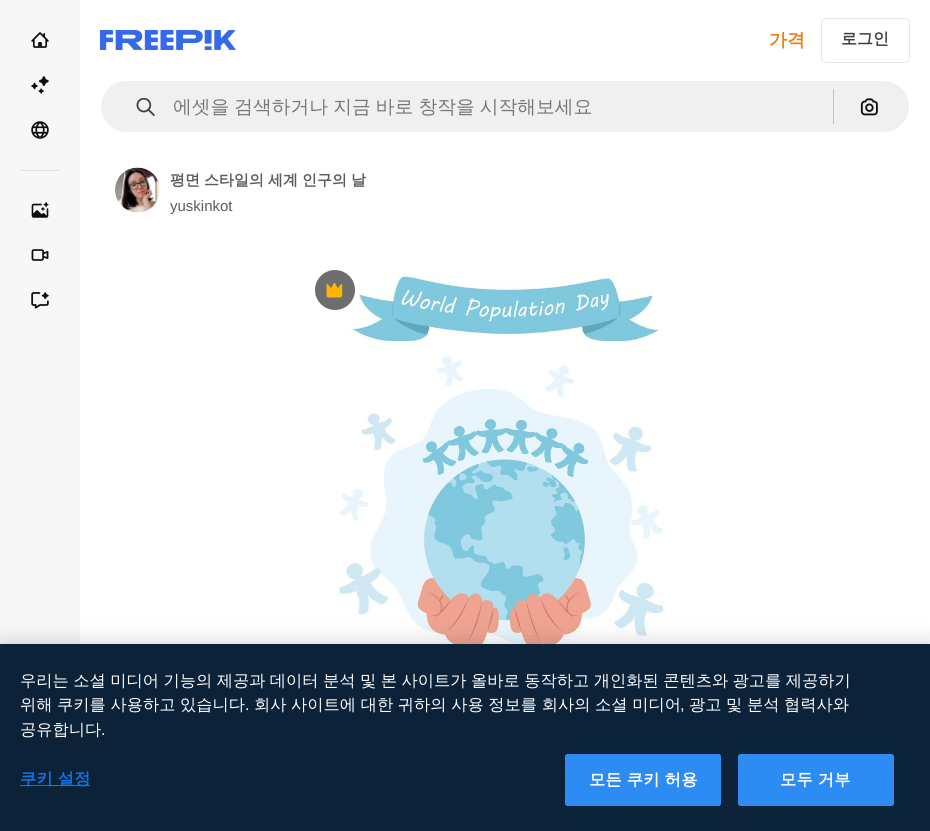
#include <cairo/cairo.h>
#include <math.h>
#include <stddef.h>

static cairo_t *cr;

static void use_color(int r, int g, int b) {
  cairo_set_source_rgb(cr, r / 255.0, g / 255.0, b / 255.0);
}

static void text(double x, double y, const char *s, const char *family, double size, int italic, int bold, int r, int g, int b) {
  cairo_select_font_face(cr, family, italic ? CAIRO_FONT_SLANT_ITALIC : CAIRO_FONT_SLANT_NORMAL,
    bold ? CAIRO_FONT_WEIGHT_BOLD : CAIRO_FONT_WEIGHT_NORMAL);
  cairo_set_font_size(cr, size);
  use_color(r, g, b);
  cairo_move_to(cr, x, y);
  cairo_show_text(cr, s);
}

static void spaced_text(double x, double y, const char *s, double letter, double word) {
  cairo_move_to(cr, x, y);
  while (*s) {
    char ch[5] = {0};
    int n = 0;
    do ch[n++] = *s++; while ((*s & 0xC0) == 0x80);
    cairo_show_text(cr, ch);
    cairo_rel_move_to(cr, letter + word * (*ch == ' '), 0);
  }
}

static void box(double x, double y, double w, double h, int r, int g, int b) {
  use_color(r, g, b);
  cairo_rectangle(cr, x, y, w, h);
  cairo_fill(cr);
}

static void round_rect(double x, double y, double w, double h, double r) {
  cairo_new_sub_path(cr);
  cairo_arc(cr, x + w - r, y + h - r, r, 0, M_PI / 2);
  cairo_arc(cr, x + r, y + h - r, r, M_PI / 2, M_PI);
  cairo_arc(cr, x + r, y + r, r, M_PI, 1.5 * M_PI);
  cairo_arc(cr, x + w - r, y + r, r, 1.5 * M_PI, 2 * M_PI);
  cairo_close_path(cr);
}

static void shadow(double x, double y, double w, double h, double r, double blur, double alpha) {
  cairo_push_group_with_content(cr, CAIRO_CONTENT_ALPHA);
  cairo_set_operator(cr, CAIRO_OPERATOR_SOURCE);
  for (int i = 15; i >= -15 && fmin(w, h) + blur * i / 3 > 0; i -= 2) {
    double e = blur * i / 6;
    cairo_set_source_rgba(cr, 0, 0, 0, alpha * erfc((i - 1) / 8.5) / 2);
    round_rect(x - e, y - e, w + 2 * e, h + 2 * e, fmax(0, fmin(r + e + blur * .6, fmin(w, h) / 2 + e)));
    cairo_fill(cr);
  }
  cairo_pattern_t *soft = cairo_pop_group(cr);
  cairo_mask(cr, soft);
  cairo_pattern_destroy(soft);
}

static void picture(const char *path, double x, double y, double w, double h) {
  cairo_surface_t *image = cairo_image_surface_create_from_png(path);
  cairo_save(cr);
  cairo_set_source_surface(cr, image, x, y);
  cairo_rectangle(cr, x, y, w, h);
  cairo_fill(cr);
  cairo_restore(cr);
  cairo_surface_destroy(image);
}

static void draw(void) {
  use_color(255, 255, 255);
  cairo_paint(cr);
  box(0, 0, 80, 644, 247, 247, 247);
  picture("img_01.png", 31, 32, 18, 16);
  picture("img_02.png", 31, 76, 18, 18);
  picture("img_03.png", 31, 121, 18, 18);
  box(20, 170, 40, 1, 224, 224, 224);
  picture("img_04.png", 31, 202, 18, 16);
  picture("img_05.png", 31, 249, 18, 12);
  picture("img_06.png", 31, 292, 18, 17);
  picture("img_07.png", 100, 30, 136, 20);
  round_rect(821.5, 18.5, 88, 44, 4.5);
  use_color(231, 231, 231);
  cairo_set_line_width(cr, 1);
  cairo_stroke(cr);
  use_color(240, 240, 240);
  round_rect(100.5, 80.5, 809, 52, 26);
  cairo_fill_preserve(cr);
  use_color(255, 255, 255);
  cairo_stroke(cr);
  picture("img_08.png", 136, 98, 19, 18);
  box(833, 89, 1, 35, 195, 195, 195);
  picture("img_09.png", 860, 98, 18, 18);
  picture("img_10.png", 115, 167, 45, 46);
  picture("img_12.png", 337, 273, 327, 371);
  use_color(110, 110, 110);
  cairo_arc(cr, 335, 290, 20, 0, 2 * M_PI);
  cairo_fill(cr);
  picture("img_11.png", 326, 283, 17, 15);
  use_color(0, 0, 0);
  shadow(0, 644, 930, 187, 0, 11, 0.2);
  box(0, 644, 930, 187, 11, 34, 57);
  box(20, 785, 70, 1, 18, 115, 235);
  use_color(44, 140, 244);
  round_rect(565.5, 754.5, 155, 51, 2);
  cairo_fill_preserve(cr);
  cairo_stroke(cr);
  round_rect(738.5, 754.5, 155, 51, 2);
  cairo_fill_preserve(cr);
  cairo_stroke(cr);
  text(769, 46, "가격", "WenQuanYi Zen Hei", 18, 0, 1, 234, 126, 17);
  text(841, 44, "로그인", "WenQuanYi Zen Hei", 16, 0, 1, 66, 66, 66);
  cairo_select_font_face(cr, "WenQuanYi Zen Hei Medium", CAIRO_FONT_SLANT_NORMAL, CAIRO_FONT_WEIGHT_NORMAL);
  cairo_set_font_size(cr, 18.75);
  use_color(119, 119, 119);
  spaced_text(173, 113, "에셋을 검색하거나 지금 바로 창작을 시작해보세요", 0, -0.5);
  cairo_select_font_face(cr, "WenQuanYi Zen Hei", CAIRO_FONT_SLANT_NORMAL, CAIRO_FONT_WEIGHT_BOLD);
  cairo_set_font_size(cr, 15);
  use_color(92, 92, 92);
  spaced_text(170, 185, "평면 스타일의 세계 인구의 날", 0, -0.5);
  text(170, 211, "yuskinkot", "Liberation Sans", 15, 0, 0, 92, 92, 92);
  cairo_select_font_face(cr, "WenQuanYi Zen Hei Medium", CAIRO_FONT_SLANT_NORMAL, CAIRO_FONT_WEIGHT_NORMAL);
  cairo_set_font_size(cr, 16.25);
  use_color(255, 255, 255);
  spaced_text(20, 686, "우리는 소셜 미디어 기능의 제공과 데이터 분석 및 본 사이트가 올바로 동작하고 개인화된 콘텐츠와 광고를 제공하기", 0, -0.4);
  spaced_text(20, 710, "위해 쿠키를 사용하고 있습니다", 0, -0.25);
  text(245, 710, ".", "Liberation Sans", 16.25, 0, 0, 255, 255, 255);
  cairo_select_font_face(cr, "WenQuanYi Zen Hei Medium", CAIRO_FONT_SLANT_NORMAL, CAIRO_FONT_WEIGHT_NORMAL);
  spaced_text(254, 710, "회사 사이트에 대한 귀하의 사용 정보를 회사의 소셜 미디어", 0, -0.25);
  text(680, 710, ",", "Liberation Sans", 16.25, 0, 0, 255, 255, 255);
  cairo_select_font_face(cr, "WenQuanYi Zen Hei Medium", CAIRO_FONT_SLANT_NORMAL, CAIRO_FONT_WEIGHT_NORMAL);
  spaced_text(689, 710, "광고 및 분석 협력사와", 0, -0.25);
  text(20, 735, "공유합니다", "WenQuanYi Zen Hei Medium", 16.25, 0, 0, 255, 255, 255);
  text(101, 735, ".", "Liberation Sans", 16.25, 0, 0, 255, 255, 255);
  cairo_select_font_face(cr, "WenQuanYi Zen Hei", CAIRO_FONT_SLANT_NORMAL, CAIRO_FONT_WEIGHT_BOLD);
  use_color(18, 115, 235);
  spaced_text(20, 784, "쿠키 설정", 0.25, -0.25);
  use_color(255, 255, 255);
  spaced_text(589, 785, "모든 쿠키 허용", 0.25, -0.25);
  spaced_text(780, 785, "모두 거부", 0.25, -0.25);
}

int main(void) {
  cairo_surface_t *surface = cairo_image_surface_create(CAIRO_FORMAT_RGB24, 930, 831);
  cr = cairo_create(surface);
  cairo_font_options_t *options = cairo_font_options_create();
  cairo_font_options_set_hint_metrics(options, CAIRO_HINT_METRICS_OFF);
  cairo_font_options_set_hint_style(options, CAIRO_HINT_STYLE_NONE);
  cairo_set_font_options(cr, options);
  cairo_set_miter_limit(cr, 4);
  draw();
  cairo_surface_write_to_png(surface, "out.png");
  cairo_font_options_destroy(options);
  cairo_destroy(cr);
  cairo_surface_destroy(surface);
  return 0;
}
